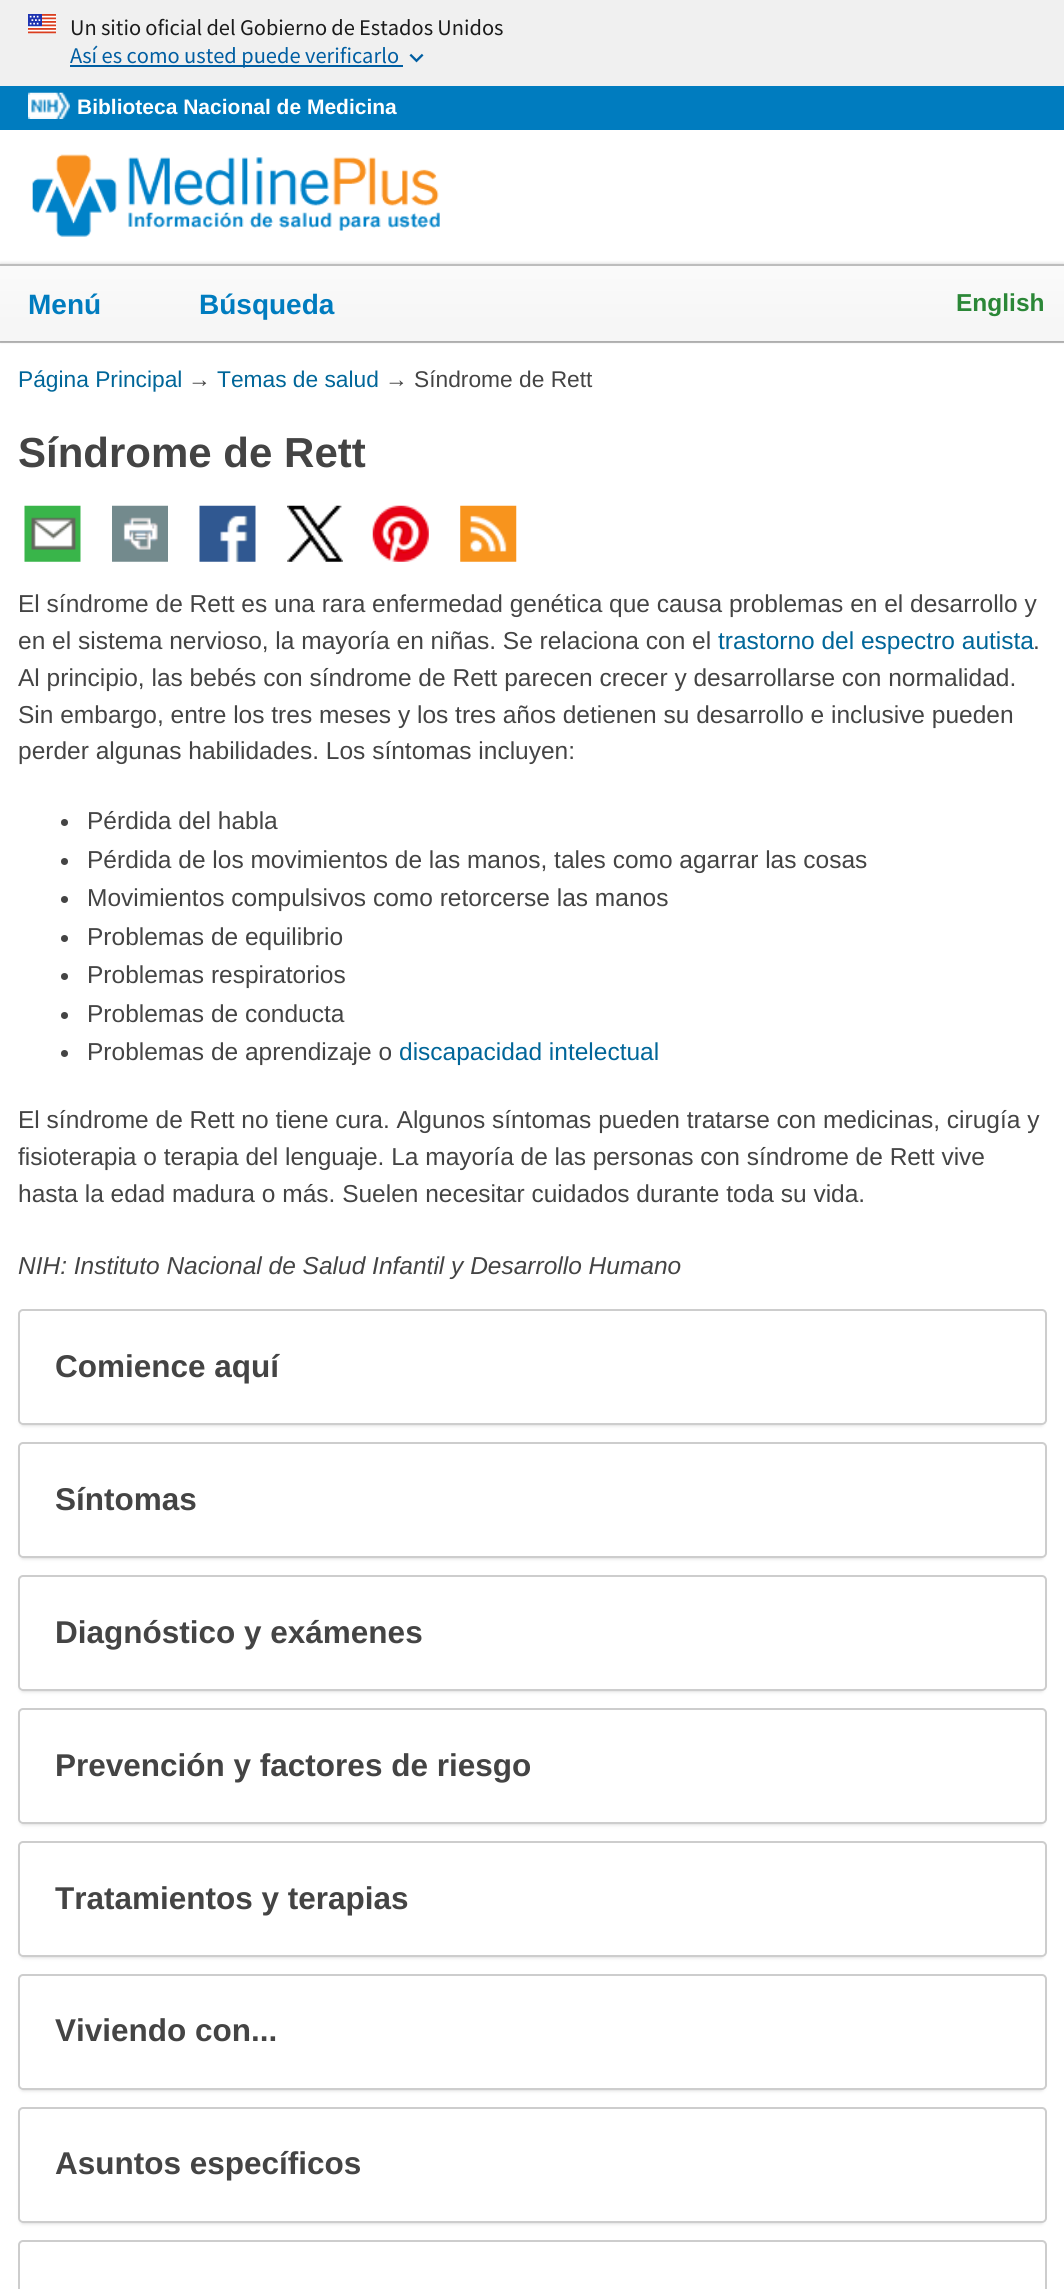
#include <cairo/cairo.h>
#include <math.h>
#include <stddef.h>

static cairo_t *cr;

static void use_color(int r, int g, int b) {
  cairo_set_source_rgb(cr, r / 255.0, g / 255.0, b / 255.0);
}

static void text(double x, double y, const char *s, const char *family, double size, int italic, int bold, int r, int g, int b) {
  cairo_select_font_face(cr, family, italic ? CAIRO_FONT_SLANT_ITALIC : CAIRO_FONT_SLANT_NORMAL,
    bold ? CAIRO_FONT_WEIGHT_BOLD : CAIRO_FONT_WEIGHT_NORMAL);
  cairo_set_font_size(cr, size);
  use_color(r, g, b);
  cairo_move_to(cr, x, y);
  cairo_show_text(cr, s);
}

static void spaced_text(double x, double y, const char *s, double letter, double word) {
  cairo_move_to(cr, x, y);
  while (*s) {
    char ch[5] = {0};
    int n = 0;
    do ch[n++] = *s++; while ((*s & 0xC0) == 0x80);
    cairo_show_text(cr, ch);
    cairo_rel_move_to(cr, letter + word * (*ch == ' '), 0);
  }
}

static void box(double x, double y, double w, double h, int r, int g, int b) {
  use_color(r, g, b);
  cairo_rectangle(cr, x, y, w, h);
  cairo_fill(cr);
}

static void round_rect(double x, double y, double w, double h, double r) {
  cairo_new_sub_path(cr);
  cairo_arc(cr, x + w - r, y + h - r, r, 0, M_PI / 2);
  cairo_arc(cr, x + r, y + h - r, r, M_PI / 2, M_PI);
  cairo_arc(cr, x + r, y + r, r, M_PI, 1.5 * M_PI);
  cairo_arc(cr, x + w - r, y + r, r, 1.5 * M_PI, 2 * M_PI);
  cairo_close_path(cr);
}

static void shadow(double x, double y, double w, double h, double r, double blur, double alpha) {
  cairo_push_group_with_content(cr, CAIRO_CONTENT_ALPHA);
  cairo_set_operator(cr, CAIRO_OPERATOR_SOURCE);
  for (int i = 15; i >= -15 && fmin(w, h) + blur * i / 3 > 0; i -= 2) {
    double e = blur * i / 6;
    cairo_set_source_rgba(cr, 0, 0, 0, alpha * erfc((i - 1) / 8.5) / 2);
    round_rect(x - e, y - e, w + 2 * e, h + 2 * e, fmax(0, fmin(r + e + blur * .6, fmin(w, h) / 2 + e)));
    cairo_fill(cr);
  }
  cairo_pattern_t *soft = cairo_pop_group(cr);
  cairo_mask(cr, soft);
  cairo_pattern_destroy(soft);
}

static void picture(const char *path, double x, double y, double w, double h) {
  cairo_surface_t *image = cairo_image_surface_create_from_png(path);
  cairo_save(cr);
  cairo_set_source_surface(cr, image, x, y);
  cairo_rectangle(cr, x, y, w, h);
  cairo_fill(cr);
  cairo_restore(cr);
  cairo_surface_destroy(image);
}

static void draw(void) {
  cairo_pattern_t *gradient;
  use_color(255, 255, 255);
  cairo_paint(cr);
  box(0, 0, 1064, 86, 240, 240, 240);
  picture("img_01.png", 28, 14, 28, 20);
  box(70, 65, 333, 2, 0, 94, 162);
  picture("img_02.png", 409, 53, 15, 10);
  box(0, 86, 1064, 44, 0, 124, 191);
  picture("img_03.png", 28, 92, 42, 27);
  picture("img_04.png", 32, 154, 408, 83);
  box(0, 341, 1064, 2, 189, 189, 189);
  use_color(0, 0, 0);
  shadow(0, 264, 1064, 77, 0, 2, 0.2);
  gradient = cairo_pattern_create_linear(532, 266, 532, 341);
  cairo_pattern_add_color_stop_rgba(gradient, 0.1, 0.98, 0.98, 0.98, 1);
  cairo_pattern_add_color_stop_rgba(gradient, 0.75, 0.965, 0.965, 0.965, 1);
  cairo_set_source(cr, gradient);
  cairo_pattern_destroy(gradient);
  cairo_rectangle(cr, 0, 266, 1064, 75);
  cairo_fill(cr);
  box(0, 264, 1064, 2, 189, 189, 189);
  picture("img_05.png", 24, 505, 57, 57);
  picture("img_06.png", 112, 505, 56, 57);
  picture("img_07.png", 199, 505, 57, 57);
  picture("img_08.png", 287, 505, 56, 57);
  picture("img_09.png", 372, 505, 57, 57);
  picture("img_10.png", 460, 505, 57, 57);
  use_color(68, 68, 68);
  cairo_arc(cr, 64.5, 822.5, 3.5, 0, 2 * M_PI);
  cairo_fill(cr);
  cairo_arc(cr, 64.5, 861.5, 3.5, 0, 2 * M_PI);
  cairo_fill(cr);
  cairo_arc(cr, 64.5, 899.5, 3.5, 0, 2 * M_PI);
  cairo_fill(cr);
  cairo_arc(cr, 64.5, 938.5, 3.5, 0, 2 * M_PI);
  cairo_fill(cr);
  cairo_arc(cr, 64.5, 976.5, 3.5, 0, 2 * M_PI);
  cairo_fill(cr);
  cairo_arc(cr, 64.5, 1015.5, 3.5, 0, 2 * M_PI);
  cairo_fill(cr);
  cairo_arc(cr, 64.5, 1053.5, 3.5, 0, 2 * M_PI);
  cairo_fill(cr);
  cairo_save(cr);
  cairo_set_fill_rule(cr, CAIRO_FILL_RULE_EVEN_ODD);
  cairo_new_path(cr);
  cairo_move_to(cr, 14, 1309);
  cairo_line_to(cr, 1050, 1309);
  cairo_line_to(cr, 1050, 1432);
  cairo_line_to(cr, 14, 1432);
  cairo_close_path(cr);
  cairo_move_to(cr, 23, 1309);
  cairo_line_to(cr, 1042, 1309);
  cairo_curve_to(cr, 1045, 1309, 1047, 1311, 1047, 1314);
  cairo_line_to(cr, 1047, 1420);
  cairo_curve_to(cr, 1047, 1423, 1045, 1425, 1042, 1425);
  cairo_line_to(cr, 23, 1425);
  cairo_curve_to(cr, 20, 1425, 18, 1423, 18, 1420);
  cairo_line_to(cr, 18, 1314);
  cairo_curve_to(cr, 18, 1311, 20, 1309, 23, 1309);
  cairo_close_path(cr);
  cairo_clip(cr);
  use_color(204, 204, 204);
  shadow(21, 1316, 1022, 109, 2, 2, 1);
  cairo_restore(cr);
  round_rect(19, 1310, 1027, 114, 4);
  use_color(205, 205, 205);
  cairo_stroke(cr);
  cairo_save(cr);
  cairo_set_fill_rule(cr, CAIRO_FILL_RULE_EVEN_ODD);
  cairo_new_path(cr);
  cairo_move_to(cr, 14, 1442);
  cairo_line_to(cr, 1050, 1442);
  cairo_line_to(cr, 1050, 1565);
  cairo_line_to(cr, 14, 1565);
  cairo_close_path(cr);
  cairo_move_to(cr, 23, 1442);
  cairo_line_to(cr, 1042, 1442);
  cairo_curve_to(cr, 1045, 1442, 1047, 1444, 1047, 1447);
  cairo_line_to(cr, 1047, 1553);
  cairo_curve_to(cr, 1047, 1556, 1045, 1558, 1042, 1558);
  cairo_line_to(cr, 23, 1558);
  cairo_curve_to(cr, 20, 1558, 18, 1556, 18, 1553);
  cairo_line_to(cr, 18, 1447);
  cairo_curve_to(cr, 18, 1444, 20, 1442, 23, 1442);
  cairo_close_path(cr);
  cairo_clip(cr);
  use_color(204, 204, 204);
  shadow(21, 1449, 1022, 109, 2, 2, 1);
  cairo_restore(cr);
  round_rect(19, 1443, 1027, 114, 4);
  cairo_stroke(cr);
  cairo_save(cr);
  cairo_set_fill_rule(cr, CAIRO_FILL_RULE_EVEN_ODD);
  cairo_new_path(cr);
  cairo_move_to(cr, 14, 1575);
  cairo_line_to(cr, 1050, 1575);
  cairo_line_to(cr, 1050, 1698);
  cairo_line_to(cr, 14, 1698);
  cairo_close_path(cr);
  cairo_move_to(cr, 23, 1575);
  cairo_line_to(cr, 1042, 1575);
  cairo_curve_to(cr, 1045, 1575, 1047, 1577, 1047, 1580);
  cairo_line_to(cr, 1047, 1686);
  cairo_curve_to(cr, 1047, 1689, 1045, 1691, 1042, 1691);
  cairo_line_to(cr, 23, 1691);
  cairo_curve_to(cr, 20, 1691, 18, 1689, 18, 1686);
  cairo_line_to(cr, 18, 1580);
  cairo_curve_to(cr, 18, 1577, 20, 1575, 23, 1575);
  cairo_close_path(cr);
  cairo_clip(cr);
  use_color(204, 204, 204);
  shadow(21, 1582, 1022, 109, 2, 2, 1);
  cairo_restore(cr);
  round_rect(19, 1576, 1027, 114, 4);
  cairo_stroke(cr);
  cairo_save(cr);
  cairo_set_fill_rule(cr, CAIRO_FILL_RULE_EVEN_ODD);
  cairo_new_path(cr);
  cairo_move_to(cr, 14, 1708);
  cairo_line_to(cr, 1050, 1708);
  cairo_line_to(cr, 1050, 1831);
  cairo_line_to(cr, 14, 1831);
  cairo_close_path(cr);
  cairo_move_to(cr, 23, 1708);
  cairo_line_to(cr, 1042, 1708);
  cairo_curve_to(cr, 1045, 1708, 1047, 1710, 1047, 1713);
  cairo_line_to(cr, 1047, 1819);
  cairo_curve_to(cr, 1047, 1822, 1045, 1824, 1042, 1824);
  cairo_line_to(cr, 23, 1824);
  cairo_curve_to(cr, 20, 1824, 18, 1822, 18, 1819);
  cairo_line_to(cr, 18, 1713);
  cairo_curve_to(cr, 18, 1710, 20, 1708, 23, 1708);
  cairo_close_path(cr);
  cairo_clip(cr);
  use_color(204, 204, 204);
  shadow(21, 1715, 1022, 109, 2, 2, 1);
  cairo_restore(cr);
  round_rect(19, 1709, 1027, 114, 4);
  cairo_stroke(cr);
  cairo_save(cr);
  cairo_set_fill_rule(cr, CAIRO_FILL_RULE_EVEN_ODD);
  cairo_new_path(cr);
  cairo_move_to(cr, 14, 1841);
  cairo_line_to(cr, 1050, 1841);
  cairo_line_to(cr, 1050, 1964);
  cairo_line_to(cr, 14, 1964);
  cairo_close_path(cr);
  cairo_move_to(cr, 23, 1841);
  cairo_line_to(cr, 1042, 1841);
  cairo_curve_to(cr, 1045, 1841, 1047, 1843, 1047, 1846);
  cairo_line_to(cr, 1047, 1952);
  cairo_curve_to(cr, 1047, 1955, 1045, 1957, 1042, 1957);
  cairo_line_to(cr, 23, 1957);
  cairo_curve_to(cr, 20, 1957, 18, 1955, 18, 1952);
  cairo_line_to(cr, 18, 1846);
  cairo_curve_to(cr, 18, 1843, 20, 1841, 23, 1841);
  cairo_close_path(cr);
  cairo_clip(cr);
  use_color(204, 204, 204);
  shadow(21, 1848, 1022, 109, 2, 2, 1);
  cairo_restore(cr);
  round_rect(19, 1842, 1027, 114, 4);
  cairo_stroke(cr);
  cairo_save(cr);
  cairo_set_fill_rule(cr, CAIRO_FILL_RULE_EVEN_ODD);
  cairo_new_path(cr);
  cairo_move_to(cr, 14, 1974);
  cairo_line_to(cr, 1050, 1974);
  cairo_line_to(cr, 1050, 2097);
  cairo_line_to(cr, 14, 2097);
  cairo_close_path(cr);
  cairo_move_to(cr, 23, 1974);
  cairo_line_to(cr, 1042, 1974);
  cairo_curve_to(cr, 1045, 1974, 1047, 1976, 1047, 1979);
  cairo_line_to(cr, 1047, 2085);
  cairo_curve_to(cr, 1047, 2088, 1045, 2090, 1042, 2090);
  cairo_line_to(cr, 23, 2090);
  cairo_curve_to(cr, 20, 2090, 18, 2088, 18, 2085);
  cairo_line_to(cr, 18, 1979);
  cairo_curve_to(cr, 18, 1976, 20, 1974, 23, 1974);
  cairo_close_path(cr);
  cairo_clip(cr);
  use_color(204, 204, 204);
  shadow(21, 1981, 1022, 109, 2, 2, 1);
  cairo_restore(cr);
  round_rect(19, 1975, 1027, 114, 4);
  cairo_stroke(cr);
  cairo_save(cr);
  cairo_set_fill_rule(cr, CAIRO_FILL_RULE_EVEN_ODD);
  cairo_new_path(cr);
  cairo_move_to(cr, 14, 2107);
  cairo_line_to(cr, 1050, 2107);
  cairo_line_to(cr, 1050, 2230);
  cairo_line_to(cr, 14, 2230);
  cairo_close_path(cr);
  cairo_move_to(cr, 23, 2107);
  cairo_line_to(cr, 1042, 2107);
  cairo_curve_to(cr, 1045, 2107, 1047, 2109, 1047, 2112);
  cairo_line_to(cr, 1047, 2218);
  cairo_curve_to(cr, 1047, 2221, 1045, 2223, 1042, 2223);
  cairo_line_to(cr, 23, 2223);
  cairo_curve_to(cr, 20, 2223, 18, 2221, 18, 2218);
  cairo_line_to(cr, 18, 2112);
  cairo_curve_to(cr, 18, 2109, 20, 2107, 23, 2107);
  cairo_close_path(cr);
  cairo_clip(cr);
  use_color(204, 204, 204);
  shadow(21, 2114, 1022, 109, 2, 2, 1);
  cairo_restore(cr);
  round_rect(19, 2108, 1027, 114, 4);
  cairo_stroke(cr);
  round_rect(19, 2241, 1027, 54, 4);
  cairo_stroke(cr);
  cairo_select_font_face(cr, "Source Sans Pro", CAIRO_FONT_SLANT_NORMAL, CAIRO_FONT_WEIGHT_NORMAL);
  cairo_set_font_size(cr, 22.4);
  use_color(27, 27, 27);
  spaced_text(70, 35, "Un sitio oficial del Gobierno de Estados Unidos", 0, -0.25);
  text(70, 63, "Así es como usted puede verificarlo", "Source Sans Pro", 22.4, 0, 0, 0, 94, 162);
  text(77, 114, "Biblioteca Nacional de Medicina", "Liberation Sans", 21, 0, 1, 255, 255, 255);
  text(28, 314, "Menú", "Liberation Sans", 28, 0, 1, 0, 124, 191);
  text(199, 314, "Búsqueda", "Liberation Sans", 28, 0, 1, 0, 124, 191);
  text(956, 311, "English", "Liberation Sans", 24.5, 0, 1, 43, 135, 55);
  text(18, 387, "Página Principal", "Liberation Sans", 22.75, 0, 0, 0, 102, 153);
  text(188, 387, "→", "Liberation Sans", 22.75, 0, 0, 68, 68, 68);
  text(217, 387, "Temas de salud", "Liberation Sans", 22.75, 0, 0, 0, 102, 153);
  text(385, 387, "→ Síndrome de Rett", "Liberation Sans", 22.75, 0, 0, 68, 68, 68);
  text(18, 467, "Síndrome de Rett", "Liberation Sans", 42, 0, 1, 68, 68, 68);
  text(18, 612, "El síndrome de Rett es una rara enfermedad genética que causa problemas en el desarrollo y", "Liberation Sans", 24.5, 0, 0, 68, 68, 68);
  text(18, 649, "en el sistema nervioso, la mayoría en niñas. Se relaciona con el", "Liberation Sans", 24.5, 0, 0, 68, 68, 68);
  text(718, 649, "trastorno del espectro autista", "Liberation Sans", 24.5, 0, 0, 0, 102, 153);
  text(1033, 649, ".", "Liberation Sans", 24.5, 0, 0, 68, 68, 68);
  text(18, 686, "Al principio, las bebés con síndrome de Rett parecen crecer y desarrollarse con normalidad.", "Liberation Sans", 24.5, 0, 0, 68, 68, 68);
  text(18, 723, "Sin embargo, entre los tres meses y los tres años detienen su desarrollo e inclusive pueden", "Liberation Sans", 24.5, 0, 0, 68, 68, 68);
  text(18, 759, "perder algunas habilidades. Los síntomas incluyen:", "Liberation Sans", 24.5, 0, 0, 68, 68, 68);
  text(87, 829, "Pérdida del habla", "Liberation Sans", 24.5, 0, 0, 68, 68, 68);
  text(87, 868, "Pérdida de los movimientos de las manos, tales como agarrar las cosas", "Liberation Sans", 24.5, 0, 0, 68, 68, 68);
  text(87, 906, "Movimientos compulsivos como retorcerse las manos", "Liberation Sans", 24.5, 0, 0, 68, 68, 68);
  text(87, 945, "Problemas de equilibrio", "Liberation Sans", 24.5, 0, 0, 68, 68, 68);
  text(87, 983, "Problemas respiratorios", "Liberation Sans", 24.5, 0, 0, 68, 68, 68);
  text(87, 1022, "Problemas de conducta", "Liberation Sans", 24.5, 0, 0, 68, 68, 68);
  text(87, 1060, "Problemas de aprendizaje o", "Liberation Sans", 24.5, 0, 0, 68, 68, 68);
  text(399, 1060, "discapacidad intelectual", "Liberation Sans", 24.5, 0, 0, 0, 102, 153);
  text(18, 1128, "El síndrome de Rett no tiene cura. Algunos síntomas pueden tratarse con medicinas, cirugía y", "Liberation Sans", 24.5, 0, 0, 68, 68, 68);
  text(18, 1165, "fisioterapia o terapia del lenguaje. La mayoría de las personas con síndrome de Rett vive", "Liberation Sans", 24.5, 0, 0, 68, 68, 68);
  text(18, 1202, "hasta la edad madura o más. Suelen necesitar cuidados durante toda su vida.", "Liberation Sans", 24.5, 0, 0, 68, 68, 68);
  text(18, 1274, "NIH: Instituto Nacional de Salud Infantil y Desarrollo Humano", "Liberation Sans", 24.5, 1, 0, 68, 68, 68);
  text(55, 1377, "Comience aquí", "Liberation Sans", 31.5, 0, 1, 68, 68, 68);
  text(55, 1510, "Síntomas", "Liberation Sans", 31.5, 0, 1, 68, 68, 68);
  text(55, 1643, "Diagnóstico y exámenes", "Liberation Sans", 31.5, 0, 1, 68, 68, 68);
  text(55, 1776, "Prevención y factores de riesgo", "Liberation Sans", 31.5, 0, 1, 68, 68, 68);
  text(55, 1909, "Tratamientos y terapias", "Liberation Sans", 31.5, 0, 1, 68, 68, 68);
  text(55, 2041, "Viviendo con...", "Liberation Sans", 31.5, 0, 1, 68, 68, 68);
  text(55, 2174, "Asuntos específicos", "Liberation Sans", 31.5, 0, 1, 68, 68, 68);
}

int main(void) {
  cairo_surface_t *surface = cairo_image_surface_create(CAIRO_FORMAT_RGB24, 1064, 2289);
  cr = cairo_create(surface);
  cairo_font_options_t *options = cairo_font_options_create();
  cairo_font_options_set_hint_metrics(options, CAIRO_HINT_METRICS_OFF);
  cairo_font_options_set_hint_style(options, CAIRO_HINT_STYLE_NONE);
  cairo_set_font_options(cr, options);
  cairo_set_miter_limit(cr, 4);
  draw();
  cairo_surface_write_to_png(surface, "out.png");
  cairo_font_options_destroy(options);
  cairo_destroy(cr);
  cairo_surface_destroy(surface);
  return 0;
}
